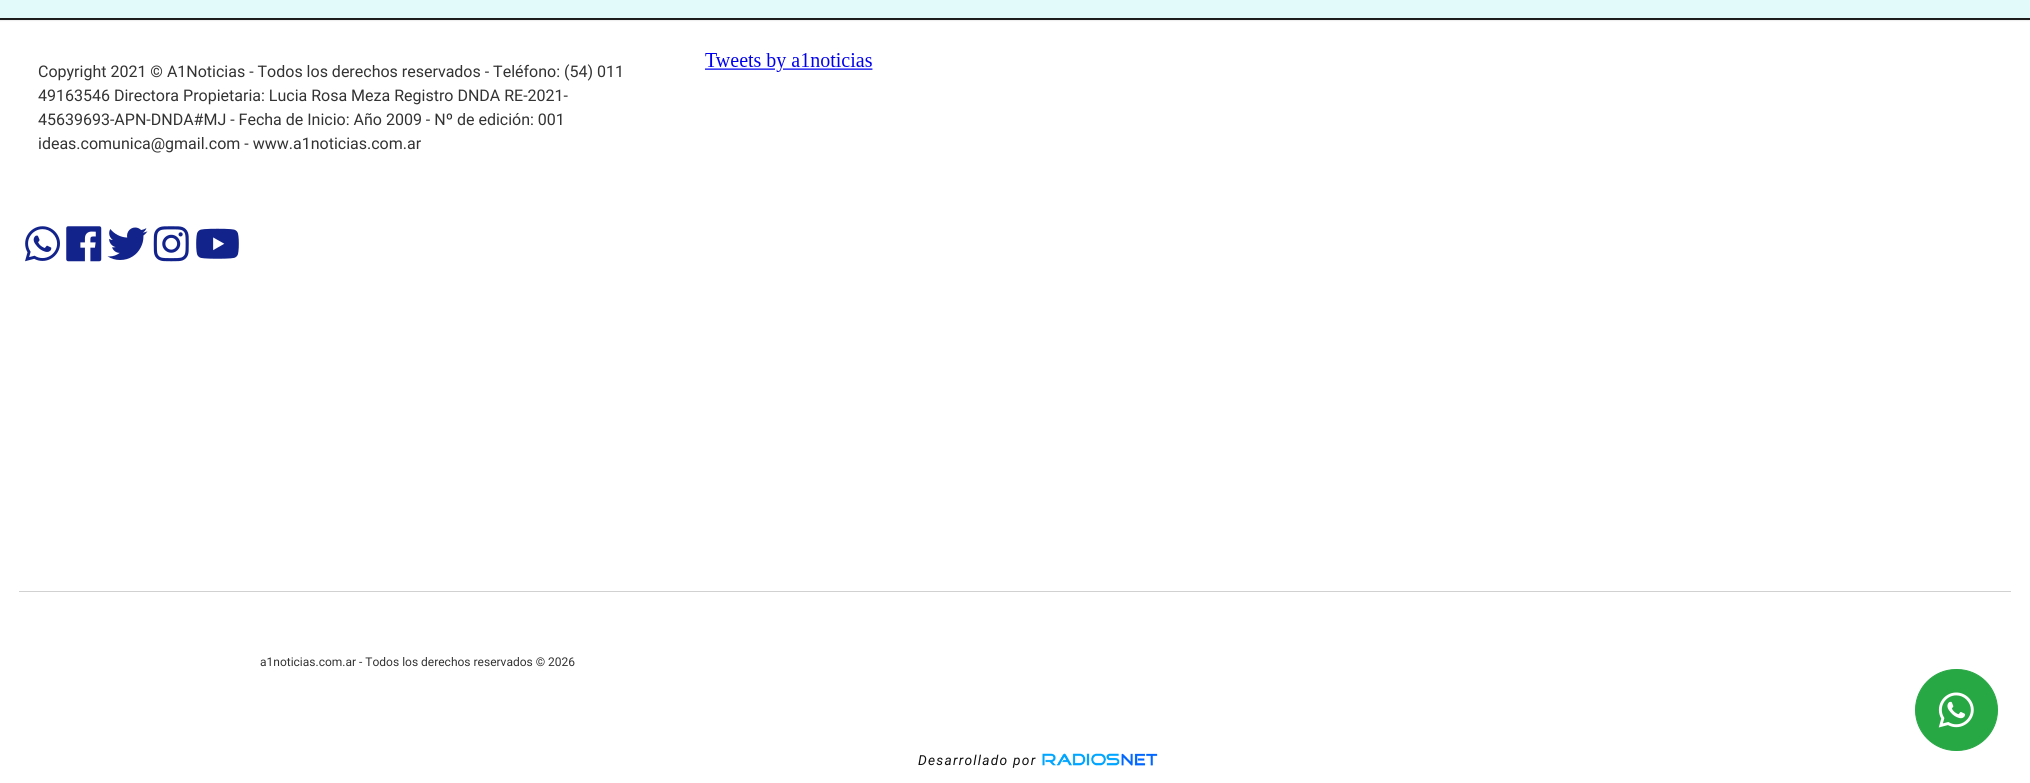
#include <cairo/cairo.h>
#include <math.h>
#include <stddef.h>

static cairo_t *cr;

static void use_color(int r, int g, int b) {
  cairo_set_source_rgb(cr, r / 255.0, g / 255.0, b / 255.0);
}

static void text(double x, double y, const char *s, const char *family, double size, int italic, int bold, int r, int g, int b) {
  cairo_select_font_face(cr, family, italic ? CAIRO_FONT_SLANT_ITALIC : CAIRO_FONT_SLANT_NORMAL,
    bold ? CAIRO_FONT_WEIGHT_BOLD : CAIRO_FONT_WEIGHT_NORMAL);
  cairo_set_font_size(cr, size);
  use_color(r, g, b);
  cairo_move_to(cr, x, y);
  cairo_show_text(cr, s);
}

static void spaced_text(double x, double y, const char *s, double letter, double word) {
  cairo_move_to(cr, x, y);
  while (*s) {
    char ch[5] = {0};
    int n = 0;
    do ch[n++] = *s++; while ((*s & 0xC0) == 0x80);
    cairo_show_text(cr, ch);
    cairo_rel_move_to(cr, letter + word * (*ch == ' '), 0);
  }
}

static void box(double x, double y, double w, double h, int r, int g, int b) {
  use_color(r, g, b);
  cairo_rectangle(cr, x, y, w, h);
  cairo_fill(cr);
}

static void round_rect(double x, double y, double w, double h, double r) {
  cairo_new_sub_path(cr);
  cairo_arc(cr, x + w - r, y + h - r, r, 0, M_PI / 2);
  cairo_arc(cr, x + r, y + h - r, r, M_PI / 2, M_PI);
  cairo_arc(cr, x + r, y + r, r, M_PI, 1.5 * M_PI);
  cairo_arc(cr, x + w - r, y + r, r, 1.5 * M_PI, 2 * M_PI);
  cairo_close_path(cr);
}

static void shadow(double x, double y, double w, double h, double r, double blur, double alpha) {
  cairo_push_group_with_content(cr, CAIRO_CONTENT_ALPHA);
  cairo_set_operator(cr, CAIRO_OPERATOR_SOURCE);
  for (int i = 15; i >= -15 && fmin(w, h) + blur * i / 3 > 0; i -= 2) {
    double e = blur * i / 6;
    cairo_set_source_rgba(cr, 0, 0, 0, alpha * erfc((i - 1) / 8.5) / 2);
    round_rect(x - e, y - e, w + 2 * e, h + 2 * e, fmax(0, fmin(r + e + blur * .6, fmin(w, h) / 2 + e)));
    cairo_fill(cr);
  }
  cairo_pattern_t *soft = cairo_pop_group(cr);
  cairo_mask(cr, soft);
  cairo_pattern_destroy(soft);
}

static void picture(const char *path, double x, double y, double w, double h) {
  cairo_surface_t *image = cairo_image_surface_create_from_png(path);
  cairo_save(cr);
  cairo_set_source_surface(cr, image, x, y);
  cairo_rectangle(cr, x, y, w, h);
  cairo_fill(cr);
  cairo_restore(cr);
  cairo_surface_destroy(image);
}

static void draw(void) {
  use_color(255, 255, 255);
  cairo_paint(cr);
  box(0, 18, 2030, 2, 34, 34, 34);
  use_color(0, 0, 0);
  shadow(0, -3, 2030, 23, 0, 1, 0.18);
  box(0, 0, 2030, 18, 227, 250, 251);
  picture("img_01.png", 25, 226, 35, 36);
  picture("img_02.png", 66, 226, 36, 36);
  picture("img_03.png", 107, 227, 41, 33);
  picture("img_04.png", 153, 226, 36, 36);
  picture("img_05.png", 196, 228, 43, 31);
  picture("img_06.png", 705, 53, 168, 19);
  box(19, 591, 1992, 1, 209, 209, 209);
  use_color(40, 167, 69);
  round_rect(1915.5, 669.5, 82, 81, 40.5);
  cairo_fill_preserve(cr);
  cairo_set_line_width(cr, 1);
  cairo_stroke(cr);
  picture("img_07.png", 1938, 692, 36, 36);
  picture("img_08.png", 1042, 753, 116, 13);
  text(38, 77, "Copyright 2021 © A1Noticias - Todos los derechos reservados - Teléfono: (54) 011", "Roboto", 16, 0, 0, 51, 51, 51);
  text(38, 101, "49163546 Directora Propietaria: Lucia Rosa Meza Registro DNDA RE-2021-", "Roboto", 16, 0, 0, 51, 51, 51);
  text(38, 125, "45639693-APN-DNDA#MJ - Fecha de Inicio: Año 2009 - Nº de edición: 001", "Roboto", 16, 0, 0, 51, 51, 51);
  text(38, 149, "ideas.comunica@gmail.com - www.a1noticias.com.ar", "Roboto", 16, 0, 0, 51, 51, 51);
  text(260, 666, "a1noticias.com.ar - Todos los derechos reservados © 2026", "Roboto", 12, 0, 0, 51, 51, 51);
  cairo_select_font_face(cr, "Roboto", CAIRO_FONT_SLANT_ITALIC, CAIRO_FONT_WEIGHT_NORMAL);
  cairo_set_font_size(cr, 13.75);
  use_color(17, 17, 17);
  spaced_text(918, 765, "Desarrollado por", 1.25, 0);
}

int main(void) {
  cairo_surface_t *surface = cairo_image_surface_create(CAIRO_FORMAT_RGB24, 2030, 783);
  cr = cairo_create(surface);
  cairo_font_options_t *options = cairo_font_options_create();
  cairo_font_options_set_hint_metrics(options, CAIRO_HINT_METRICS_OFF);
  cairo_font_options_set_hint_style(options, CAIRO_HINT_STYLE_NONE);
  cairo_set_font_options(cr, options);
  cairo_set_miter_limit(cr, 4);
  draw();
  cairo_surface_write_to_png(surface, "out.png");
  cairo_font_options_destroy(options);
  cairo_destroy(cr);
  cairo_surface_destroy(surface);
  return 0;
}
